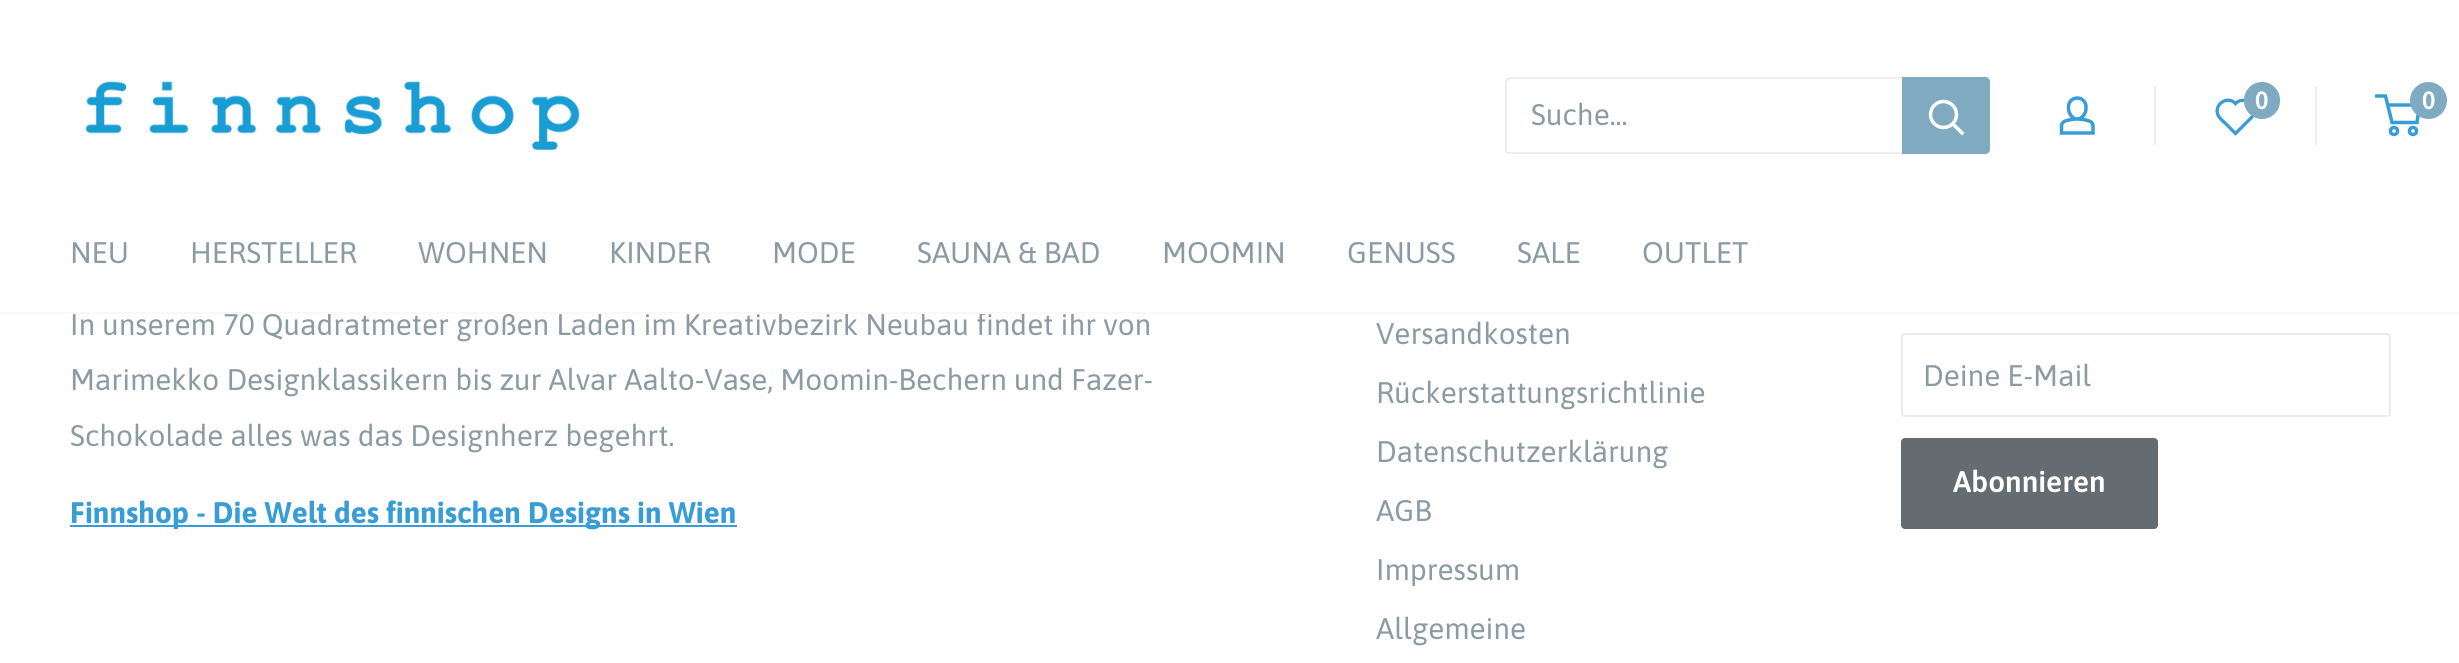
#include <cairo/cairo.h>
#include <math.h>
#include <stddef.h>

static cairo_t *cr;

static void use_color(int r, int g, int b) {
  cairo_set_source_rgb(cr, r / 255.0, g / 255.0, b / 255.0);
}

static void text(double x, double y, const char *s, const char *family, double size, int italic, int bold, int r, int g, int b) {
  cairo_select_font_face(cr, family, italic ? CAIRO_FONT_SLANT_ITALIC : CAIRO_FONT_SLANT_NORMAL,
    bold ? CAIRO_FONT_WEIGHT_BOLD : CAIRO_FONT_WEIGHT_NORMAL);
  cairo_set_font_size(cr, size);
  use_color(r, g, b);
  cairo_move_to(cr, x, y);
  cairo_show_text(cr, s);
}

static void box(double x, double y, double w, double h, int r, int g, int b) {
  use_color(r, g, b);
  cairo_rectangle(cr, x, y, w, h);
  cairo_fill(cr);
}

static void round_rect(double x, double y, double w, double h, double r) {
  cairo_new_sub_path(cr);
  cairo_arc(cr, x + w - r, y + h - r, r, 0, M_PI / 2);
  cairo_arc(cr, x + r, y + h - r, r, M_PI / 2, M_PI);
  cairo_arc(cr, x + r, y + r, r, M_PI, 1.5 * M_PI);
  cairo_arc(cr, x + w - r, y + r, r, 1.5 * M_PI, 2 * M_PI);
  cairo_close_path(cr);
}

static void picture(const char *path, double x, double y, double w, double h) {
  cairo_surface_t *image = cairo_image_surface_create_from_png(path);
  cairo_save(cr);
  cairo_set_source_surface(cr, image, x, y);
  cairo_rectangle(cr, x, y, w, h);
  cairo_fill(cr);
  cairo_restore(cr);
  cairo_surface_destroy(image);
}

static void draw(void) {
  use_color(255, 255, 255);
  cairo_paint(cr);
  picture("img_01.png", 85, 81, 495, 69);
  use_color(239, 237, 237);
  cairo_new_path(cr);
  cairo_move_to(cr, 1506, 151);
  cairo_curve_to(cr, 1506, 153, 1508, 154, 1510, 154);
  cairo_line_to(cr, 1985, 154);
  cairo_curve_to(cr, 1988, 154, 1990, 152, 1990, 149);
  cairo_line_to(cr, 1990, 82);
  cairo_curve_to(cr, 1990, 80, 1989, 78, 1987, 78);
  cairo_line_to(cr, 1988, 80);
  cairo_line_to(cr, 1988, 147);
  cairo_curve_to(cr, 1988, 150, 1986, 152, 1983, 152);
  cairo_line_to(cr, 1508, 152);
  cairo_close_path(cr);
  cairo_fill(cr);
  cairo_set_source_rgba(cr, 0.792, 0.761, 0.761, 0.3);
  cairo_new_path(cr);
  cairo_move_to(cr, 1512, 79);
  cairo_line_to(cr, 1986, 79);
  cairo_line_to(cr, 1990, 80);
  cairo_curve_to(cr, 1989, 78, 1987, 77, 1985, 77);
  cairo_line_to(cr, 1510, 77);
  cairo_curve_to(cr, 1507, 77, 1505, 79, 1505, 82);
  cairo_line_to(cr, 1505, 149);
  cairo_curve_to(cr, 1505, 151, 1506, 153, 1508, 154);
  cairo_line_to(cr, 1507, 150);
  cairo_line_to(cr, 1507, 84);
  cairo_curve_to(cr, 1507, 81, 1509, 79, 1512, 79);
  cairo_close_path(cr);
  cairo_fill(cr);
  use_color(128, 170, 194);
  cairo_new_path(cr);
  cairo_move_to(cr, 1902, 77);
  cairo_line_to(cr, 1985, 77);
  cairo_curve_to(cr, 1988, 77, 1990, 79, 1990, 82);
  cairo_line_to(cr, 1990, 149);
  cairo_curve_to(cr, 1990, 152, 1988, 154, 1985, 154);
  cairo_line_to(cr, 1902, 154);
  cairo_close_path(cr);
  cairo_fill(cr);
  cairo_new_path(cr);
  cairo_move_to(cr, 1962, 133);
  cairo_line_to(cr, 1953, 124);
  use_color(255, 255, 255);
  cairo_set_line_width(cr, 3.5);
  cairo_set_line_cap(cr, CAIRO_LINE_CAP_SQUARE);
  cairo_stroke(cr);
  cairo_arc(cr, 1943.5, 114.5, 13, 0, 2 * M_PI);
  cairo_set_line_cap(cr, CAIRO_LINE_CAP_BUTT);
  cairo_stroke(cr);
  picture("img_02.png", 2059, 96, 36, 39);
  box(2154, 86, 2, 59, 239, 237, 237);
  cairo_new_path(cr);
  cairo_move_to(cr, 2250.5, 103.5);
  cairo_curve_to(cr, 2246.5, 99.5, 2239.5, 99, 2235.5, 103.5);
  cairo_curve_to(cr, 2227.5, 95, 2213.5, 104.5, 2218, 115);
  cairo_curve_to(cr, 2219.5, 118.5, 2223, 121, 2225.5, 123.5);
  cairo_line_to(cr, 2235.5, 133.5);
  cairo_line_to(cr, 2252, 117);
  cairo_curve_to(cr, 2255, 112.5, 2254, 107, 2250.5, 103.5);
  cairo_close_path(cr);
  use_color(56, 157, 215);
  cairo_set_line_width(cr, 3.3);
  cairo_stroke(cr);
  use_color(128, 170, 194);
  round_rect(2244, 82, 36, 37, 18);
  cairo_fill(cr);
  box(2315, 86, 2, 59, 239, 237, 237);
  cairo_arc(cr, 2394, 131, 3.5, 0, 2 * M_PI);
  use_color(56, 157, 215);
  cairo_set_line_width(cr, 3.5);
  cairo_stroke(cr);
  cairo_arc(cr, 2413, 131, 3.5, 0, 2 * M_PI);
  cairo_stroke(cr);
  cairo_new_path(cr);
  cairo_move_to(cr, 2387.5, 105);
  cairo_line_to(cr, 2419.5, 105);
  cairo_line_to(cr, 2417, 122.5);
  cairo_line_to(cr, 2392, 122.5);
  cairo_line_to(cr, 2385.5, 96);
  cairo_line_to(cr, 2375, 96);
  cairo_stroke(cr);
  use_color(128, 170, 194);
  cairo_arc(cr, 2428.5, 100.5, 18.5, 0, 2 * M_PI);
  cairo_fill(cr);
  box(70, 525, 667, 2, 56, 157, 215);
  round_rect(1902, 334, 488, 82, 3);
  use_color(235, 235, 235);
  cairo_set_line_width(cr, 2);
  cairo_stroke(cr);
  use_color(100, 108, 113);
  round_rect(1901, 438, 257, 91, 4);
  cairo_fill(cr);
  text(1531, 125, "Suche...", "Asap", 29.75, 0, 0, 139, 155, 164);
  text(2255, 109, "0", "Asap SemiBold", 25, 0, 0, 255, 255, 255);
  text(2422, 109, "0", "Asap SemiBold", 25, 0, 0, 255, 255, 255);
  text(70, 263, "NEU", "Asap", 29.75, 0, 0, 139, 155, 164);
  text(190, 263, "HERSTELLER", "Asap", 29.75, 0, 0, 139, 155, 164);
  text(418, 263, "WOHNEN", "Asap", 29.75, 0, 0, 139, 155, 164);
  text(609, 263, "KINDER", "Asap", 29.75, 0, 0, 139, 155, 164);
  text(772, 263, "MODE", "Asap", 29.75, 0, 0, 139, 155, 164);
  text(917, 263, "SAUNA & BAD", "Asap", 29.75, 0, 0, 139, 155, 164);
  text(1162, 263, "MOOMIN", "Asap", 29.75, 0, 0, 139, 155, 164);
  text(1347, 263, "GENUSS", "Asap", 29.75, 0, 0, 139, 155, 164);
  text(1517, 263, "SALE", "Asap", 29.75, 0, 0, 139, 155, 164);
  text(1642, 263, "OUTLET", "Asap", 29.75, 0, 0, 139, 155, 164);
  text(70, 335, "In unserem 70 Quadratmeter großen Laden im Kreativbezirk Neubau findet ihr von", "Asap", 29.75, 0, 0, 139, 155, 164);
  box(0, 312, 2459, 2, 248, 248, 248);
  text(70, 390, "Marimekko Designklassikern bis zur Alvar Aalto-Vase, Moomin-Bechern und Fazer-", "Asap", 29.75, 0, 0, 139, 155, 164);
  text(70, 446, "Schokolade alles was das Designherz begehrt.", "Asap", 29.75, 0, 0, 139, 155, 164);
  text(70, 523, "Finnshop - Die Welt des finnischen Designs in Wien", "Asap", 29.75, 0, 1, 56, 157, 215);
  text(1376, 344, "Versandkosten", "Asap", 29.75, 0, 0, 139, 155, 164);
  text(1376, 403, "Rückerstattungsrichtlinie", "Asap", 29.75, 0, 0, 139, 155, 164);
  text(1376, 462, "Datenschutzerklärung", "Asap", 29.75, 0, 0, 139, 155, 164);
  text(1376, 521, "AGB", "Asap", 29.75, 0, 0, 139, 155, 164);
  text(1376, 580, "Impressum", "Asap", 29.75, 0, 0, 139, 155, 164);
  text(1376, 639, "Allgemeine", "Asap", 29.75, 0, 0, 139, 155, 164);
  text(1923, 386, "Deine E-Mail", "Asap", 29.75, 0, 0, 139, 155, 164);
  text(1953, 492, "Abonnieren", "Asap SemiBold", 29.75, 0, 0, 255, 255, 255);
}

int main(void) {
  cairo_surface_t *surface = cairo_image_surface_create(CAIRO_FORMAT_RGB24, 2459, 663);
  cr = cairo_create(surface);
  cairo_font_options_t *options = cairo_font_options_create();
  cairo_font_options_set_hint_metrics(options, CAIRO_HINT_METRICS_OFF);
  cairo_font_options_set_hint_style(options, CAIRO_HINT_STYLE_NONE);
  cairo_set_font_options(cr, options);
  cairo_set_miter_limit(cr, 4);
  draw();
  cairo_surface_write_to_png(surface, "out.png");
  cairo_font_options_destroy(options);
  cairo_destroy(cr);
  cairo_surface_destroy(surface);
  return 0;
}
